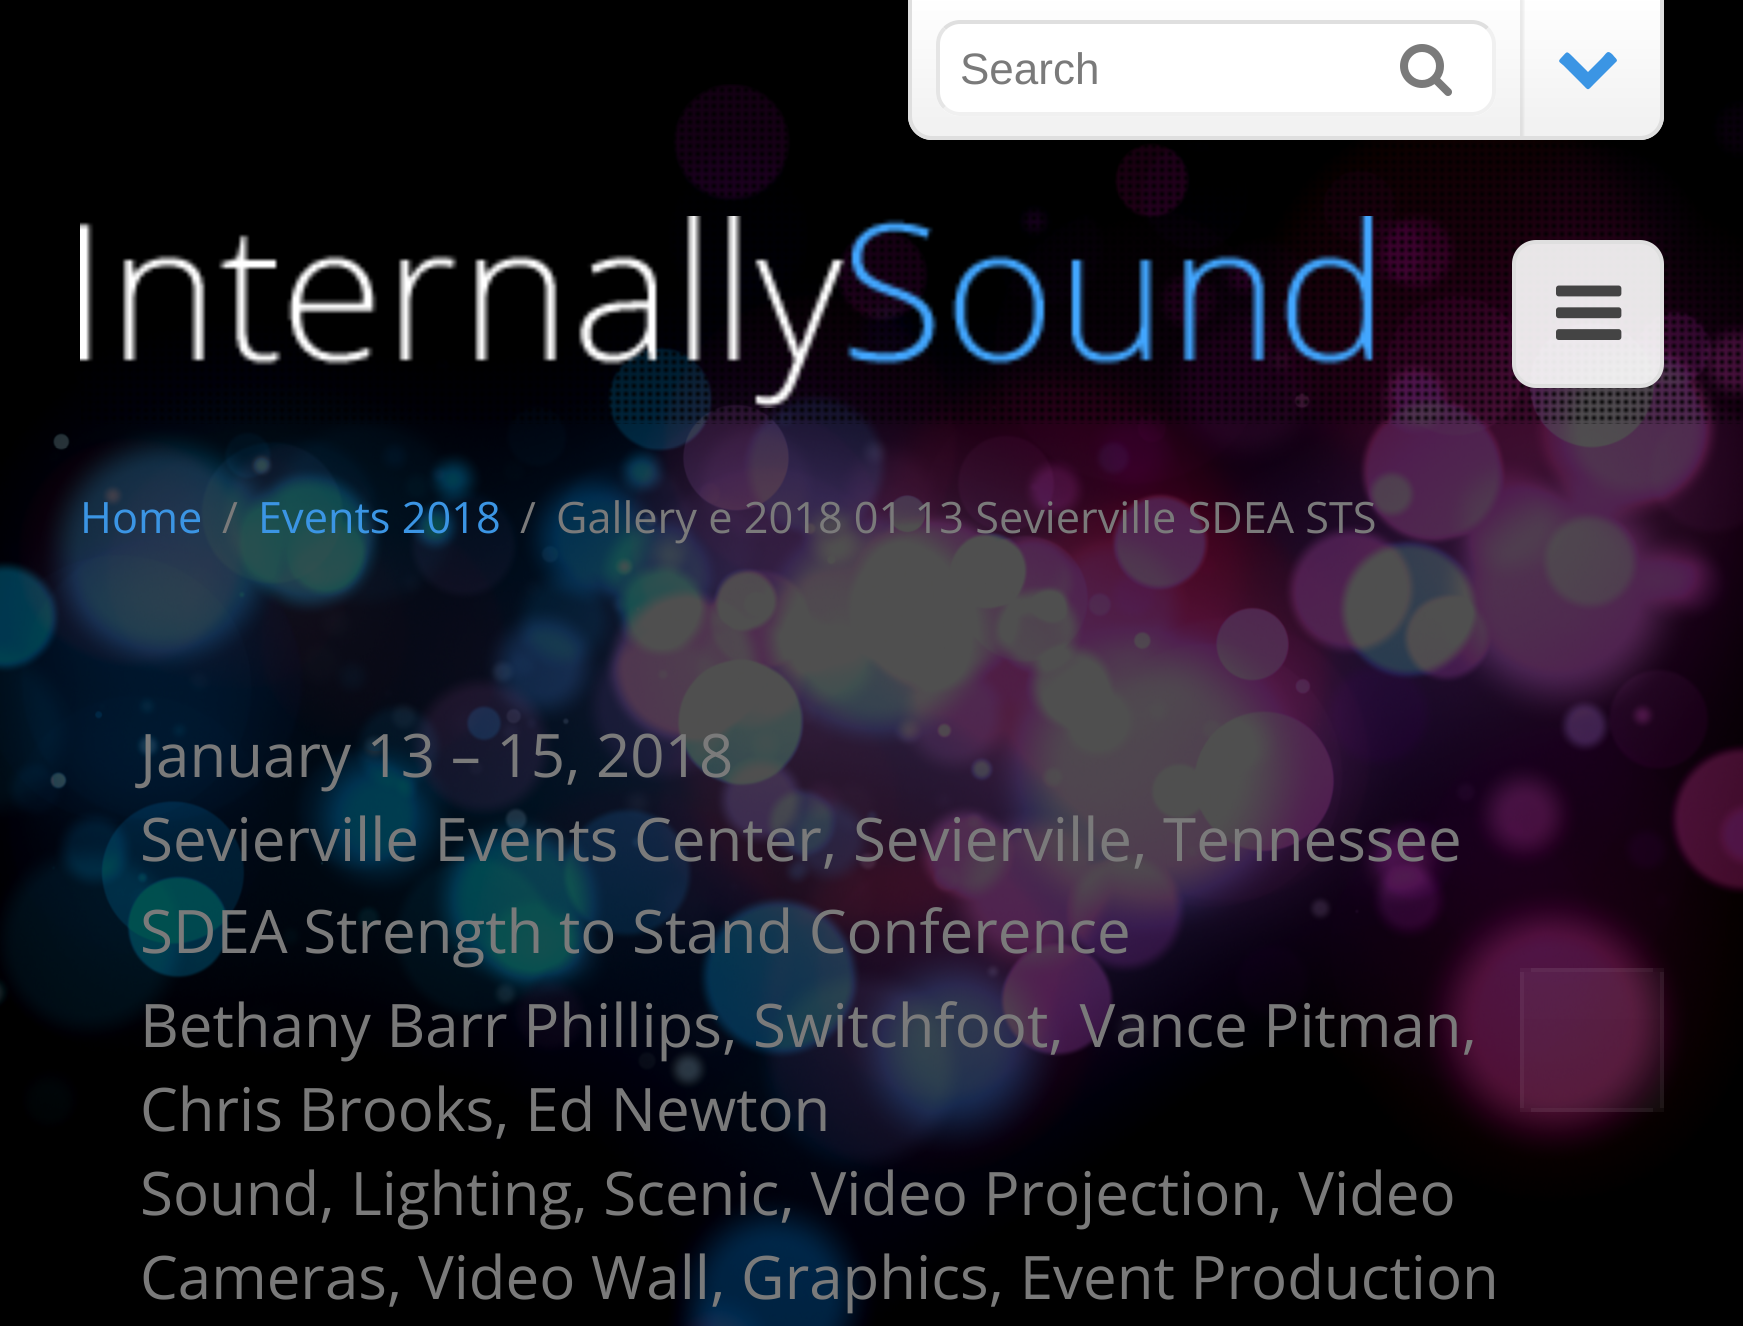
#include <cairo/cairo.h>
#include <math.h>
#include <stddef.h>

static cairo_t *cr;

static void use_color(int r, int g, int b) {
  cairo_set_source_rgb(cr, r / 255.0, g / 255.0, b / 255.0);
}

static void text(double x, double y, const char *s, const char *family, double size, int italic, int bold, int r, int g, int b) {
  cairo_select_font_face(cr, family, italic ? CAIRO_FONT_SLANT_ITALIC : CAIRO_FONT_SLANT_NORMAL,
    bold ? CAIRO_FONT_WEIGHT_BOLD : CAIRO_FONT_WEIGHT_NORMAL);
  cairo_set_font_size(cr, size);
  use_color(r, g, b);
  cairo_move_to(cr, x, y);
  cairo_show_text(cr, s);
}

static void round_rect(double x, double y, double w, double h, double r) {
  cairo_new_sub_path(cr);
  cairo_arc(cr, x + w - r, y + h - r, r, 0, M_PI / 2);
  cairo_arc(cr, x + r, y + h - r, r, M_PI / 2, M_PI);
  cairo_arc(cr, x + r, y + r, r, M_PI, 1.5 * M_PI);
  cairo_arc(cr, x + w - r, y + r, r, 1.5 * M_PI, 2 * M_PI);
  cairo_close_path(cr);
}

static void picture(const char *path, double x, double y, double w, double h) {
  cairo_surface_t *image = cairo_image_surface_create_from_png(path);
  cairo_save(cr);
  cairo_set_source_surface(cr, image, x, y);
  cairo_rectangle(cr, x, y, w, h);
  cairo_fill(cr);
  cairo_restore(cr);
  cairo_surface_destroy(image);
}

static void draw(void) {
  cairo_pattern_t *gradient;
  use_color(0, 0, 0);
  cairo_paint(cr);
  picture("img_03.png", 0, 84, 1743, 1242);
  picture("img_04.png", 81, 87, 1662, 337);
  cairo_save(cr);
  cairo_new_path(cr);
  cairo_move_to(cr, 908, -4);
  cairo_line_to(cr, 1664, -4);
  cairo_line_to(cr, 1664, 116);
  cairo_curve_to(cr, 1664, 129.5, 1653.5, 140, 1640, 140);
  cairo_line_to(cr, 932, 140);
  cairo_curve_to(cr, 918.5, 140, 908, 129.5, 908, 116);
  cairo_close_path(cr);
  cairo_clip(cr);
  gradient = cairo_pattern_create_linear(912, -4, 912, 122);
  cairo_pattern_add_color_stop_rgba(gradient, 0, 1, 1, 1, 1);
  cairo_pattern_add_color_stop_rgba(gradient, 1, 0.949, 0.949, 0.949, 1);
  cairo_set_source(cr, gradient);
  cairo_pattern_destroy(gradient);
  cairo_rectangle(cr, 908, 0, 756, 136);
  cairo_fill(cr);
  gradient = cairo_pattern_create_linear(912, 136, 912, 262);
  cairo_pattern_add_color_stop_rgba(gradient, 0, 1, 1, 1, 1);
  cairo_pattern_add_color_stop_rgba(gradient, 1, 0.949, 0.949, 0.949, 1);
  cairo_set_source(cr, gradient);
  cairo_pattern_destroy(gradient);
  cairo_rectangle(cr, 919, 136, 735, 4);
  cairo_fill(cr);
  cairo_restore(cr);
  use_color(223, 223, 223);
  cairo_set_fill_rule(cr, CAIRO_FILL_RULE_EVEN_ODD);
  cairo_new_path(cr);
  cairo_move_to(cr, 908, -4);
  cairo_line_to(cr, 1664, -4);
  cairo_line_to(cr, 1664, 116);
  cairo_curve_to(cr, 1664, 129, 1653, 140, 1640, 140);
  cairo_line_to(cr, 932, 140);
  cairo_curve_to(cr, 919, 140, 908, 129, 908, 116);
  cairo_close_path(cr);
  cairo_move_to(cr, 912, -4);
  cairo_line_to(cr, 1660, -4);
  cairo_line_to(cr, 1660, 116);
  cairo_curve_to(cr, 1660, 127, 1651, 136, 1640, 136);
  cairo_line_to(cr, 932, 136);
  cairo_curve_to(cr, 921, 136, 912, 127, 912, 116);
  cairo_close_path(cr);
  cairo_fill(cr);
  use_color(255, 255, 255);
  round_rect(936, 20, 560, 96, 24);
  cairo_fill(cr);
  cairo_new_path(cr);
  cairo_move_to(cr, 944.5, 28.5);
  cairo_curve_to(cr, 948.5, 24.5, 954, 22, 960, 22);
  cairo_line_to(cr, 1472, 22);
  cairo_curve_to(cr, 1478, 22, 1483.5, 24.5, 1487.5, 28.5);
  use_color(223, 223, 223);
  cairo_set_line_width(cr, 4);
  cairo_stroke(cr);
  cairo_new_path(cr);
  cairo_move_to(cr, 1487.5, 28.5);
  cairo_curve_to(cr, 1491.5, 32.5, 1494, 38, 1494, 44);
  cairo_line_to(cr, 1494, 92);
  cairo_curve_to(cr, 1494, 98, 1491.5, 103.5, 1487.5, 107.5);
  cairo_curve_to(cr, 1483.5, 111.5, 1478, 114, 1472, 114);
  cairo_line_to(cr, 960, 114);
  cairo_curve_to(cr, 954, 114, 948.5, 111.5, 944.5, 107.5);
  use_color(240, 240, 240);
  cairo_stroke(cr);
  cairo_new_path(cr);
  cairo_move_to(cr, 944.5, 107.5);
  cairo_curve_to(cr, 940.5, 103.5, 938, 98, 938, 92);
  cairo_line_to(cr, 938, 44);
  cairo_curve_to(cr, 938, 38, 940.5, 32.5, 944.5, 28.5);
  use_color(229, 229, 229);
  cairo_stroke(cr);
  picture("img_01.png", 1400, 44, 52, 52);
  picture("img_02.png", 1520, 0, 5, 136);
  use_color(59, 149, 228);
  cairo_set_fill_rule(cr, CAIRO_FILL_RULE_WINDING);
  cairo_new_path(cr);
  cairo_move_to(cr, 1616, 62);
  cairo_line_to(cr, 1594, 84);
  cairo_curve_to(cr, 1587, 91, 1589, 91, 1582, 84);
  cairo_line_to(cr, 1564, 66);
  cairo_curve_to(cr, 1560, 62, 1557, 62, 1561, 58);
  cairo_curve_to(cr, 1567, 52, 1566, 50, 1572, 56);
  cairo_line_to(cr, 1588, 72);
  cairo_line_to(cr, 1601, 59);
  cairo_curve_to(cr, 1607, 53, 1607, 49, 1613, 55);
  cairo_curve_to(cr, 1614, 57, 1619, 60, 1616, 62);
  cairo_close_path(cr);
  cairo_fill(cr);
  picture("img_05.png", 80, 216, 1294, 192);
  cairo_set_source_rgba(cr, 1, 1, 1, 0.9);
  round_rect(1514, 242, 148, 144, 22);
  cairo_fill_preserve(cr);
  use_color(223, 223, 223);
  cairo_stroke(cr);
  picture("img_06.png", 1556, 285, 66, 55);
  gradient = cairo_pattern_create_linear(1524, 836, 1524, 958);
  cairo_pattern_add_color_stop_rgba(gradient, 0, 1, 1, 1, 0.05);
  cairo_pattern_add_color_stop_rgba(gradient, 1, 0.949, 0.949, 0.949, 0.05);
  cairo_set_source(cr, gradient);
  cairo_pattern_destroy(gradient);
  cairo_rectangle(cr, 1531, 968, 122, 4);
  cairo_fill(cr);
  gradient = cairo_pattern_create_linear(1524, 972, 1524, 1094);
  cairo_pattern_add_color_stop_rgba(gradient, 0, 1, 1, 1, 0.05);
  cairo_pattern_add_color_stop_rgba(gradient, 1, 0.949, 0.949, 0.949, 0.05);
  cairo_set_source(cr, gradient);
  cairo_pattern_destroy(gradient);
  cairo_rectangle(cr, 1520, 972, 144, 136);
  cairo_fill(cr);
  gradient = cairo_pattern_create_linear(1524, 1108, 1524, 1230);
  cairo_pattern_add_color_stop_rgba(gradient, 0, 1, 1, 1, 0.05);
  cairo_pattern_add_color_stop_rgba(gradient, 1, 0.949, 0.949, 0.949, 0.05);
  cairo_set_source(cr, gradient);
  cairo_pattern_destroy(gradient);
  cairo_rectangle(cr, 1531, 1108, 122, 4);
  cairo_fill(cr);
  cairo_rectangle(cr, 1522, 970, 140, 140);
  cairo_set_source_rgba(cr, 0.875, 0.875, 0.875, 0.05);
  cairo_stroke(cr);
  text(960, 84, "Search", "Liberation Sans", 44, 0, 0, 122, 122, 122);
  text(80, 533, "Home", "Open Sans", 43.25, 0, 0, 59, 149, 228);
  text(222, 533, "/", "Open Sans", 43.25, 0, 0, 122, 122, 122);
  text(258, 533, "Events 2018", "Open Sans", 43.25, 0, 0, 59, 149, 228);
  text(520, 533, "/", "Open Sans", 43.25, 0, 0, 122, 122, 122);
  text(556, 533, "Gallery e 2018 01 13 Sevierville SDEA STS", "Open Sans", 43.25, 0, 0, 122, 122, 122);
  text(140, 777, "January 13 – 15, 2018", "Open Sans", 60, 0, 0, 122, 122, 122);
  text(140, 861, "Sevierville Events Center, Sevierville, Tennessee", "Open Sans", 60, 0, 0, 122, 122, 122);
  text(140, 953, "SDEA Strength to Stand Conference", "Open Sans", 60, 0, 0, 122, 122, 122);
  text(140, 1047, "Bethany Barr Phillips, Switchfoot, Vance Pitman,", "Open Sans", 60, 0, 0, 122, 122, 122);
  text(140, 1131, "Chris Brooks, Ed Newton", "Open Sans", 60, 0, 0, 122, 122, 122);
  text(140, 1215, "Sound, Lighting, Scenic, Video Projection, Video", "Open Sans", 60, 0, 0, 122, 122, 122);
  text(140, 1299, "Cameras, Video Wall, Graphics, Event Production", "Open Sans", 60, 0, 0, 122, 122, 122);
}

int main(void) {
  cairo_surface_t *surface = cairo_image_surface_create(CAIRO_FORMAT_RGB24, 1743, 1326);
  cr = cairo_create(surface);
  cairo_font_options_t *options = cairo_font_options_create();
  cairo_font_options_set_hint_metrics(options, CAIRO_HINT_METRICS_OFF);
  cairo_font_options_set_hint_style(options, CAIRO_HINT_STYLE_NONE);
  cairo_set_font_options(cr, options);
  cairo_set_miter_limit(cr, 4);
  draw();
  cairo_surface_write_to_png(surface, "out.png");
  cairo_font_options_destroy(options);
  cairo_destroy(cr);
  cairo_surface_destroy(surface);
  return 0;
}
